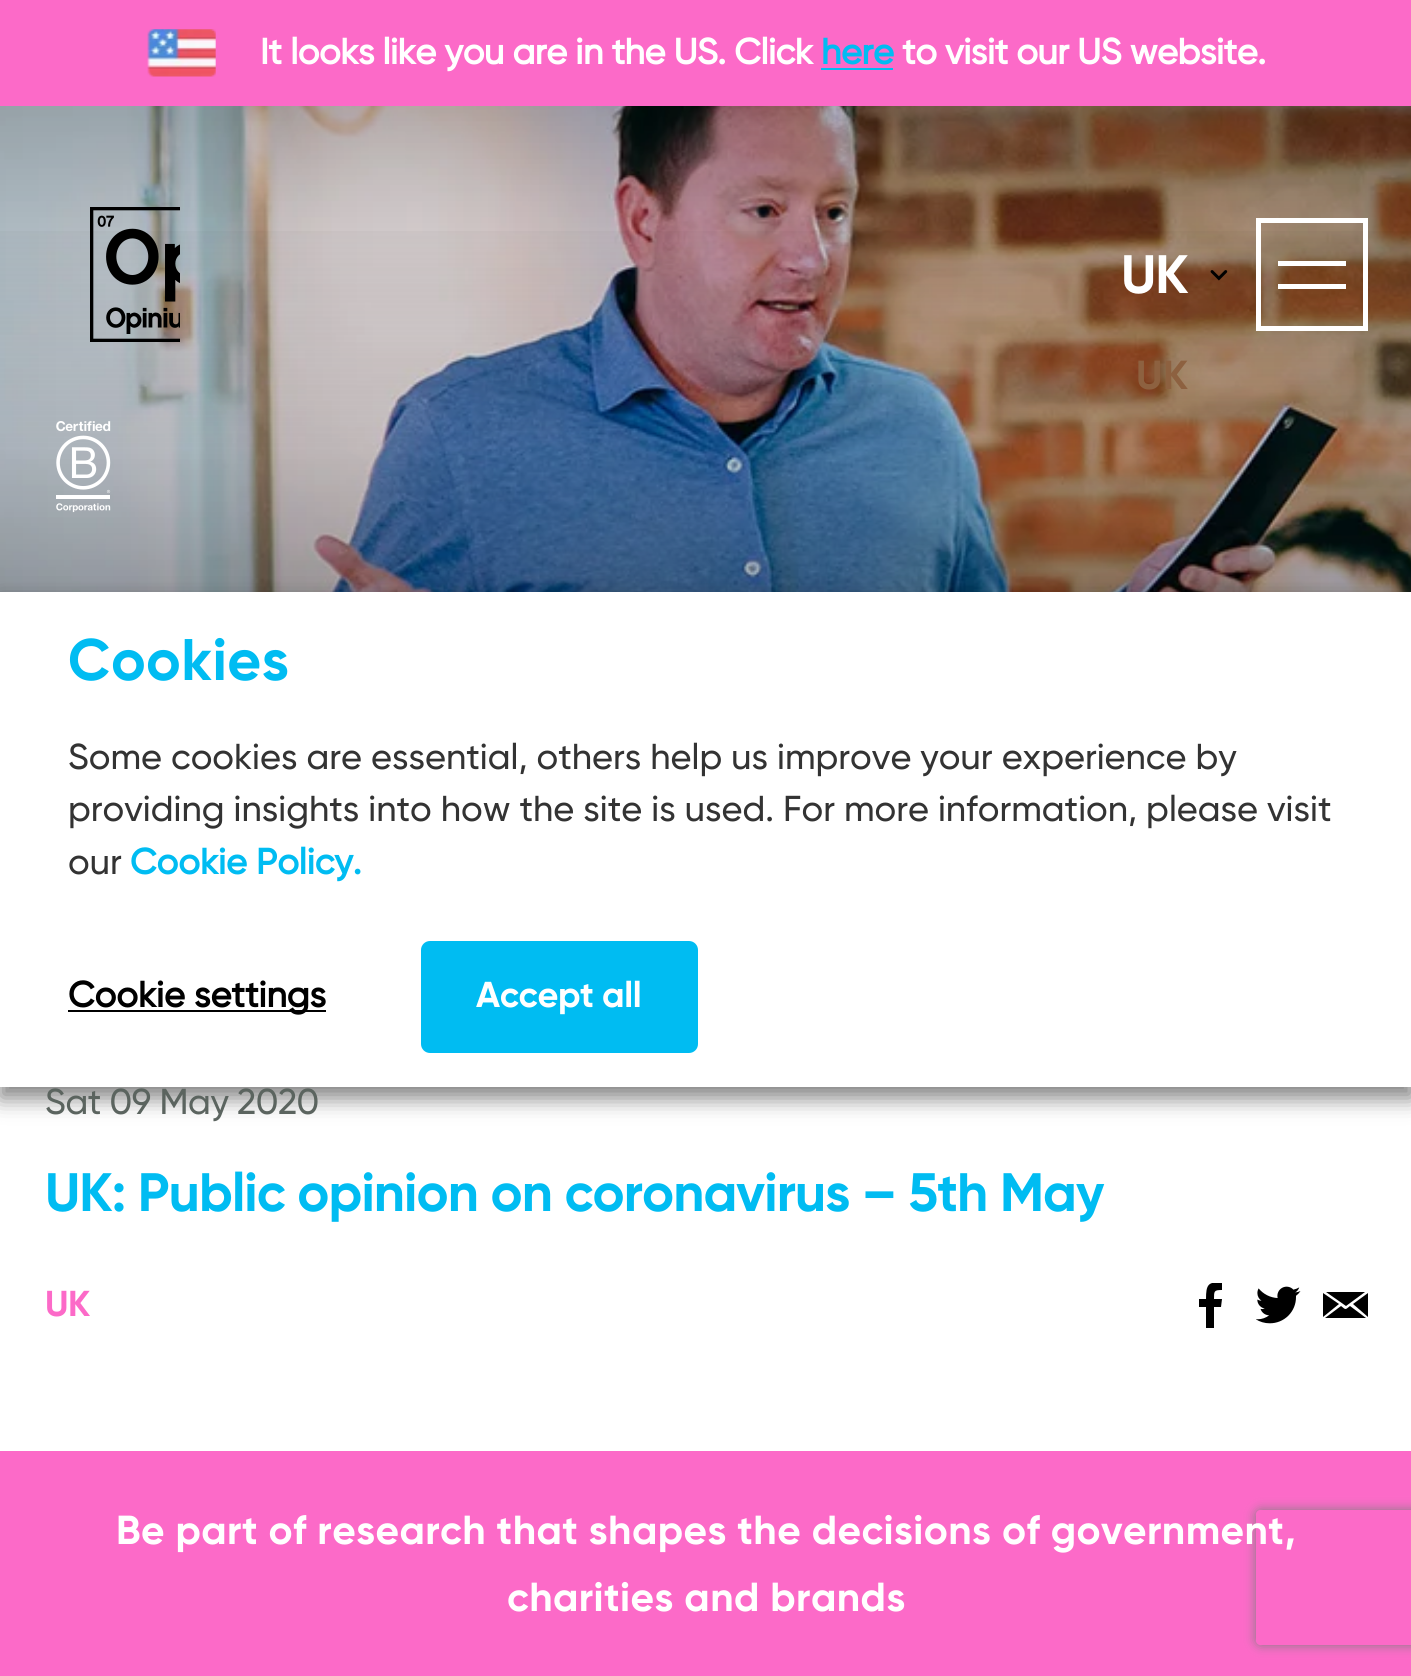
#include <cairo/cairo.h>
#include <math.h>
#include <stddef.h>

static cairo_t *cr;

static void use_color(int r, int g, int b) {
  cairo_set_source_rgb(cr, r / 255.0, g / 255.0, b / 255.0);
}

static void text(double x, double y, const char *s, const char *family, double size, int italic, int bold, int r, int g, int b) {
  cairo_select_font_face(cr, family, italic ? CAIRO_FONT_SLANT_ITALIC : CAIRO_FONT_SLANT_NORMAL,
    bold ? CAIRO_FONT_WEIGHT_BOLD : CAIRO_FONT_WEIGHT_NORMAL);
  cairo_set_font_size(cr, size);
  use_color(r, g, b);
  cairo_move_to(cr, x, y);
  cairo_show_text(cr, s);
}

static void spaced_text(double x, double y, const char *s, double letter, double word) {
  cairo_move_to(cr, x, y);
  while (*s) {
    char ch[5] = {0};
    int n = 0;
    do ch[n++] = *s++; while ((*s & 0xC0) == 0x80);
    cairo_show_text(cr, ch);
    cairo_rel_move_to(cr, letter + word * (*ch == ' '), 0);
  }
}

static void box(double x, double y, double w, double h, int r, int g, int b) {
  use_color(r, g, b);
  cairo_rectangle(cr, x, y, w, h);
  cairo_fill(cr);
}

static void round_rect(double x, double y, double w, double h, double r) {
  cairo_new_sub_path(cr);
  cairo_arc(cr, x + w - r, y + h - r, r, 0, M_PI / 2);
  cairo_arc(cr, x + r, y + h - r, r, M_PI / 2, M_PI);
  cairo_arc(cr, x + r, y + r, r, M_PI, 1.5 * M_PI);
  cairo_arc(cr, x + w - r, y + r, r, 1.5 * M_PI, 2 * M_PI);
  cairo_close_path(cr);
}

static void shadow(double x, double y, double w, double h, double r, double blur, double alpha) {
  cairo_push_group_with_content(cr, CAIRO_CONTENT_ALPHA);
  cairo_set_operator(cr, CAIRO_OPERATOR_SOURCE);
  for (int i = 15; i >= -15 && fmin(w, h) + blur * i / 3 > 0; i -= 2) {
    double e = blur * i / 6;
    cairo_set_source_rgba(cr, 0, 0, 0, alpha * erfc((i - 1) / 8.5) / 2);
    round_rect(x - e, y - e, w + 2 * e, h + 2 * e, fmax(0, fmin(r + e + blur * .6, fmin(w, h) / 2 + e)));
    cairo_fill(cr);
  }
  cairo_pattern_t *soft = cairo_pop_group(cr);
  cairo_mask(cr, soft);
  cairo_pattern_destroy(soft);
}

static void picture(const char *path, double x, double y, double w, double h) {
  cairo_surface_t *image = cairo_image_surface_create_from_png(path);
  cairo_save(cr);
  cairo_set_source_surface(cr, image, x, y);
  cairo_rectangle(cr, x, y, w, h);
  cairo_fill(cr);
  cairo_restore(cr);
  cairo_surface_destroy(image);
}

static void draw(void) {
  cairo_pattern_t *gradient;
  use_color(255, 255, 255);
  cairo_paint(cr);
  box(0, 0, 1411, 106, 252, 106, 200);
  picture("img_01.png", 147, 29, 69, 48);
  box(821, 68, 72, 2, 0, 188, 242);
  picture("img_05.png", 0, 106, 1411, 486);
  gradient = cairo_pattern_create_linear(707, 202, 707, 878);
  cairo_pattern_add_color_stop_rgba(gradient, 0, 0, 0, 0, 0);
  cairo_pattern_add_color_stop_rgba(gradient, 1, 0, 0, 0, 0.5);
  cairo_set_source(cr, gradient);
  cairo_pattern_destroy(gradient);
  cairo_rectangle(cr, 0, 231, 1411, 361);
  cairo_fill(cr);
  picture("img_02.png", 90, 207, 90, 135);
  picture("img_03.png", 56, 421, 55, 92);
  picture("img_04.png", 1210, 270, 18, 11);
  cairo_rectangle(cr, 1258.5, 220.5, 107, 108);
  use_color(255, 255, 255);
  cairo_set_line_width(cr, 5);
  cairo_stroke(cr);
  box(1278, 284, 68, 5, 255, 255, 255);
  box(1278, 261, 68, 5, 255, 255, 255);
  use_color(0, 0, 0);
  shadow(0, 603, 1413, 495, 0, 11, 0.5);
  box(0, 592, 1411, 495, 255, 255, 255);
  box(68, 1010, 258, 2, 0, 0, 0);
  use_color(0, 188, 242);
  round_rect(421, 941, 277, 112, 9);
  cairo_fill(cr);
  cairo_save(cr);
  cairo_rectangle(cr, 1188, 1283, 45, 45);
  cairo_clip(cr);
  use_color(0, 0, 0);
  cairo_new_path(cr);
  cairo_move_to(cr, 1214, 1328);
  cairo_line_to(cr, 1214, 1307);
  cairo_line_to(cr, 1221, 1307);
  cairo_line_to(cr, 1222, 1299);
  cairo_line_to(cr, 1214, 1299);
  cairo_curve_to(cr, 1214, 1291, 1214, 1290, 1222, 1290);
  cairo_line_to(cr, 1222, 1283);
  cairo_curve_to(cr, 1208, 1281, 1206, 1285, 1206, 1299);
  cairo_line_to(cr, 1199, 1299);
  cairo_line_to(cr, 1199, 1307);
  cairo_line_to(cr, 1206, 1307);
  cairo_line_to(cr, 1206, 1328);
  cairo_close_path(cr);
  cairo_fill(cr);
  cairo_restore(cr);
  picture("img_06.png", 1256, 1286, 45, 38);
  use_color(0, 0, 0);
  cairo_new_path(cr);
  cairo_move_to(cr, 1323, 1293);
  cairo_line_to(cr, 1339, 1304);
  cairo_line_to(cr, 1323, 1317);
  cairo_close_path(cr);
  cairo_move_to(cr, 1346, 1306);
  cairo_line_to(cr, 1326, 1292);
  cairo_line_to(cr, 1365, 1292);
  cairo_close_path(cr);
  cairo_move_to(cr, 1341, 1306);
  cairo_curve_to(cr, 1346, 1310, 1345, 1310, 1350, 1306);
  cairo_line_to(cr, 1366, 1318);
  cairo_line_to(cr, 1325, 1318);
  cairo_close_path(cr);
  cairo_move_to(cr, 1353, 1304);
  cairo_line_to(cr, 1368, 1293);
  cairo_line_to(cr, 1368, 1317);
  cairo_close_path(cr);
  cairo_fill(cr);
  box(0, 1451, 1411, 225, 252, 106, 200);
  cairo_save(cr);
  cairo_set_fill_rule(cr, CAIRO_FILL_RULE_EVEN_ODD);
  cairo_new_path(cr);
  cairo_move_to(cr, 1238, 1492);
  cairo_line_to(cr, 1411, 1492);
  cairo_line_to(cr, 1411, 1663);
  cairo_line_to(cr, 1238, 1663);
  cairo_close_path(cr);
  cairo_move_to(cr, 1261, 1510);
  cairo_line_to(cr, 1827, 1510);
  cairo_curve_to(cr, 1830, 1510, 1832, 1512, 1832, 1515);
  cairo_line_to(cr, 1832, 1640);
  cairo_curve_to(cr, 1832, 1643, 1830, 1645, 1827, 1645);
  cairo_line_to(cr, 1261, 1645);
  cairo_curve_to(cr, 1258, 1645, 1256, 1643, 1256, 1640);
  cairo_line_to(cr, 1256, 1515);
  cairo_curve_to(cr, 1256, 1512, 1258, 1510, 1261, 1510);
  cairo_close_path(cr);
  cairo_clip(cr);
  use_color(128, 128, 128);
  shadow(1256, 1510, 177, 135, 5, 5.5, 1);
  cairo_restore(cr);
  cairo_select_font_face(cr, "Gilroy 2", CAIRO_FONT_SLANT_NORMAL, CAIRO_FONT_WEIGHT_BOLD);
  cairo_set_font_size(cr, 36);
  use_color(255, 255, 255);
  spaced_text(260, 64, "It looks like you are in the US. Click", -0.4, 0);
  use_color(0, 188, 242);
  spaced_text(821, 64, "here", -0.4, 0);
  use_color(255, 255, 255);
  spaced_text(902, 64, "to visit our US website.", -0.4, 0);
  cairo_select_font_face(cr, "Gilroy", CAIRO_FONT_SLANT_NORMAL, CAIRO_FONT_WEIGHT_BOLD);
  cairo_set_font_size(cr, 54);
  spaced_text(1121, 293, "UK", -0.9, 0);
  cairo_set_font_size(cr, 40.5);
  use_color(141, 97, 64);
  spaced_text(1136, 389, "UK", 0.45, 0);
  cairo_set_font_size(cr, 58.5);
  use_color(0, 188, 242);
  spaced_text(68, 680, "Cookies", 0.45, 0);
  text(68, 769, "Some cookies are essential, others help us improve your experience by", "Gilroy Medium", 36, 0, 0, 51, 51, 51);
  text(68, 821, "providing insights into how the site is used. For more information, please visit", "Gilroy Medium", 36, 0, 0, 51, 51, 51);
  text(68, 874, "our", "Gilroy Medium", 36, 0, 0, 51, 51, 51);
  text(130, 874, "Cookie Policy.", "Gilroy 2", 36, 0, 1, 0, 188, 242);
  text(68, 1007, "Cookie settings", "Gilroy 2", 36, 0, 1, 0, 0, 0);
  cairo_select_font_face(cr, "Gilroy", CAIRO_FONT_SLANT_NORMAL, CAIRO_FONT_WEIGHT_BOLD);
  use_color(255, 255, 255);
  spaced_text(476, 1007, "Accept all", -0.4, 0);
  cairo_select_font_face(cr, "Gilroy Medium", CAIRO_FONT_SLANT_NORMAL, CAIRO_FONT_WEIGHT_NORMAL);
  use_color(91, 100, 95);
  spaced_text(45, 1114, "Sat 09 May 2020", -0.4, 0);
  cairo_select_font_face(cr, "Gilroy", CAIRO_FONT_SLANT_NORMAL, CAIRO_FONT_WEIGHT_BOLD);
  cairo_set_font_size(cr, 54);
  use_color(0, 188, 242);
  spaced_text(45, 1211, "UK: Public opinion on coronavirus – 5th May", -0.9, 0);
  cairo_set_font_size(cr, 36);
  use_color(252, 106, 200);
  spaced_text(45, 1316, "UK", -0.4, 0);
  cairo_set_font_size(cr, 40.5);
  use_color(255, 255, 255);
  spaced_text(116, 1544, "Be part of research that shapes the decisions of government,", 0.45, 0);
  spaced_text(507, 1611, "charities and brands", 0.45, 0);
}

int main(void) {
  cairo_surface_t *surface = cairo_image_surface_create(CAIRO_FORMAT_RGB24, 1411, 1676);
  cr = cairo_create(surface);
  cairo_font_options_t *options = cairo_font_options_create();
  cairo_font_options_set_hint_metrics(options, CAIRO_HINT_METRICS_OFF);
  cairo_font_options_set_hint_style(options, CAIRO_HINT_STYLE_NONE);
  cairo_set_font_options(cr, options);
  cairo_set_miter_limit(cr, 4);
  draw();
  cairo_surface_write_to_png(surface, "out.png");
  cairo_font_options_destroy(options);
  cairo_destroy(cr);
  cairo_surface_destroy(surface);
  return 0;
}
